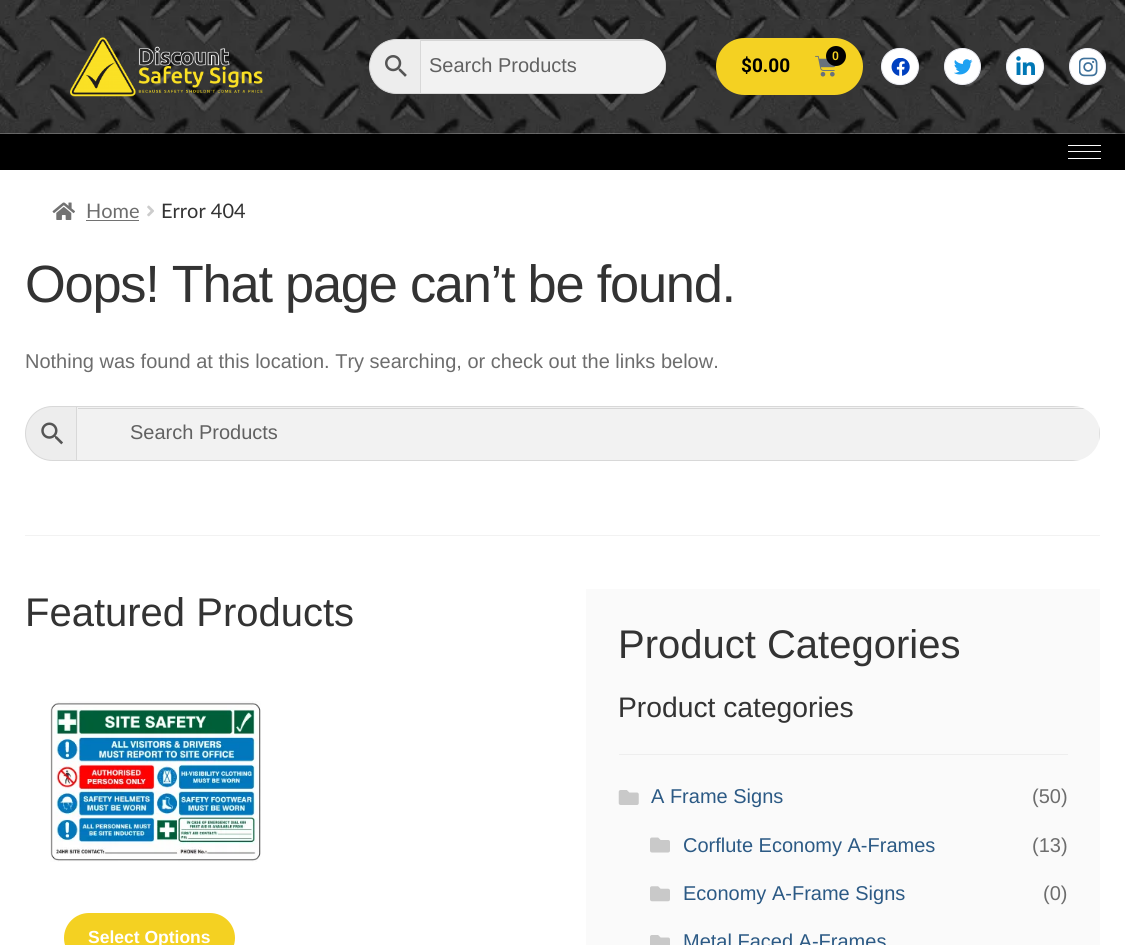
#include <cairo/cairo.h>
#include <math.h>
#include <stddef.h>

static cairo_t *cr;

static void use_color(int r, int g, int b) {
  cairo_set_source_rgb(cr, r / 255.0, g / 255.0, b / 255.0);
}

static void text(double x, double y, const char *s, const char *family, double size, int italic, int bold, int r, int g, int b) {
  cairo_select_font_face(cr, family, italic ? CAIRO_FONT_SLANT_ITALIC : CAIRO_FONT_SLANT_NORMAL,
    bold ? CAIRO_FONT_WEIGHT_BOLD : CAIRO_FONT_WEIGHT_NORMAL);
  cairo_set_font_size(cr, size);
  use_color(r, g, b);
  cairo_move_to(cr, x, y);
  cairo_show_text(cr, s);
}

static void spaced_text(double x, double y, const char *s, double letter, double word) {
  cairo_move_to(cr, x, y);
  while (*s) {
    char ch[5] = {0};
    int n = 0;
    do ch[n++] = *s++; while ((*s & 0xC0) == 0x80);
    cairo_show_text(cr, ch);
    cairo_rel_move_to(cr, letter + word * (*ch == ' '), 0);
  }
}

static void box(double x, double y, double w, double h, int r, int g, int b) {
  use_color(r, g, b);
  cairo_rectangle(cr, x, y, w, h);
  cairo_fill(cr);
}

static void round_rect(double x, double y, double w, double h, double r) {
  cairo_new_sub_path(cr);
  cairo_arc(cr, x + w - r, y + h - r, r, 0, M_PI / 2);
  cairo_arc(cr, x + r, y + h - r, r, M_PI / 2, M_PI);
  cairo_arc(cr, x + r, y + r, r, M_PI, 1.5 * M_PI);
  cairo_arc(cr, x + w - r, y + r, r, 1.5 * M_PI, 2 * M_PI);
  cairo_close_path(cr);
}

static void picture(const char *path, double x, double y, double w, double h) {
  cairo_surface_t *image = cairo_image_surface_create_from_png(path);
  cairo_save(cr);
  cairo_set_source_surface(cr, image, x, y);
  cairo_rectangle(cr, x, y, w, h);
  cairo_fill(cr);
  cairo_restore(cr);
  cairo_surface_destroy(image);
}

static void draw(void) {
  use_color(255, 255, 255);
  cairo_paint(cr);
  picture("img_01.png", 0, 0, 1125, 134);
  picture("img_02.png", 70, 37, 193, 60);
  use_color(237, 237, 237);
  cairo_new_path(cr);
  cairo_move_to(cr, 396.5, 39.5);
  cairo_line_to(cr, 420.5, 39.5);
  cairo_line_to(cr, 420.5, 93.5);
  cairo_line_to(cr, 396.5, 93.5);
  cairo_curve_to(cr, 381.5, 93.5, 369.5, 81.5, 369.5, 66.5);
  cairo_curve_to(cr, 369.5, 51.5, 381.5, 39.5, 396.5, 39.5);
  cairo_close_path(cr);
  cairo_fill_preserve(cr);
  use_color(216, 216, 216);
  cairo_set_line_width(cr, 1);
  cairo_stroke(cr);
  picture("img_03.png", 385, 55, 22, 22);
  use_color(242, 242, 242);
  cairo_new_path(cr);
  cairo_move_to(cr, 420, 39);
  cairo_line_to(cr, 638.5, 39);
  cairo_curve_to(cr, 653.5, 39, 666, 51.5, 666, 66.5);
  cairo_curve_to(cr, 666, 81.5, 653.5, 94, 638.5, 94);
  cairo_line_to(cr, 420, 94);
  cairo_close_path(cr);
  cairo_fill(cr);
  cairo_save(cr);
  cairo_new_path(cr);
  cairo_move_to(cr, 420, 39);
  cairo_line_to(cr, 638.5, 39);
  cairo_curve_to(cr, 653.5, 39, 666, 51.5, 666, 66.5);
  cairo_curve_to(cr, 666, 81.5, 653.5, 94, 638.5, 94);
  cairo_line_to(cr, 420, 94);
  cairo_close_path(cr);
  cairo_clip(cr);
  cairo_set_source_rgba(cr, 0, 0, 0, 0.12);
  cairo_rectangle(cr, 421, 40, 227, 1);
  cairo_fill(cr);
  cairo_restore(cr);
  use_color(216, 216, 216);
  cairo_set_fill_rule(cr, CAIRO_FILL_RULE_EVEN_ODD);
  cairo_new_path(cr);
  cairo_move_to(cr, 420, 39);
  cairo_line_to(cr, 420, 94);
  cairo_line_to(cr, 638, 94);
  cairo_line_to(cr, 646, 93);
  cairo_line_to(cr, 421, 93);
  cairo_line_to(cr, 421, 40);
  cairo_line_to(cr, 646, 40);
  cairo_line_to(cr, 638, 39);
  cairo_close_path(cr);
  cairo_move_to(cr, 665, 59);
  cairo_line_to(cr, 665, 74);
  cairo_curve_to(cr, 666, 69, 666, 64, 665, 59);
  cairo_close_path(cr);
  cairo_fill(cr);
  use_color(244, 209, 34);
  round_rect(716, 38, 147, 57, 28.5);
  cairo_fill(cr);
  picture("img_04.png", 815, 55, 21, 22);
  use_color(2, 1, 1);
  cairo_arc(cr, 836, 56, 10, 0, 2 * M_PI);
  cairo_fill(cr);
  use_color(255, 255, 255);
  round_rect(881.5, 48.5, 37, 36, 18);
  cairo_fill_preserve(cr);
  use_color(234, 235, 241);
  cairo_stroke(cr);
  picture("img_05.png", 891, 58, 19, 18);
  use_color(255, 255, 255);
  cairo_arc(cr, 962.5, 66.5, 18, 0, 2 * M_PI);
  cairo_fill_preserve(cr);
  use_color(234, 235, 241);
  cairo_stroke(cr);
  picture("img_06.png", 954, 59, 19, 16);
  use_color(255, 255, 255);
  round_rect(1006.5, 48.5, 37, 36, 18);
  cairo_fill_preserve(cr);
  use_color(234, 235, 241);
  cairo_stroke(cr);
  picture("img_07.png", 1016, 56, 19, 19);
  use_color(255, 255, 255);
  cairo_arc(cr, 1087.5, 66.5, 18, 0, 2 * M_PI);
  cairo_fill_preserve(cr);
  use_color(234, 235, 241);
  cairo_stroke(cr);
  picture("img_08.png", 1079, 57, 19, 20);
  box(0, 134, 1125, 36, 0, 0, 0);
  box(1068, 145, 33, 1, 253, 253, 253);
  box(1068, 151, 33, 1, 253, 253, 253);
  box(1068, 158, 33, 1, 253, 253, 253);
  picture("img_09.png", 52, 202, 23, 18);
  box(86, 220, 53, 1, 114, 114, 114);
  picture("img_10.png", 147, 205, 7, 12);
  use_color(237, 237, 237);
  cairo_new_path(cr);
  cairo_move_to(cr, 52.5, 406.5);
  cairo_line_to(cr, 77.5, 406.5);
  cairo_line_to(cr, 77.5, 460.5);
  cairo_line_to(cr, 52.5, 460.5);
  cairo_curve_to(cr, 37.5, 460.5, 25.5, 448.5, 25.5, 433.5);
  cairo_curve_to(cr, 25.5, 418.5, 37.5, 406.5, 52.5, 406.5);
  cairo_close_path(cr);
  cairo_fill_preserve(cr);
  use_color(216, 216, 216);
  cairo_stroke(cr);
  picture("img_11.png", 41, 422, 22, 23);
  use_color(242, 242, 242);
  cairo_new_path(cr);
  cairo_move_to(cr, 76, 406);
  cairo_line_to(cr, 1072.5, 406);
  cairo_curve_to(cr, 1087.5, 406, 1100, 418.5, 1100, 433.5);
  cairo_curve_to(cr, 1100, 448.5, 1087.5, 461, 1072.5, 461);
  cairo_line_to(cr, 76, 461);
  cairo_close_path(cr);
  cairo_fill(cr);
  cairo_save(cr);
  cairo_set_fill_rule(cr, CAIRO_FILL_RULE_WINDING);
  cairo_new_path(cr);
  cairo_move_to(cr, 76, 406);
  cairo_line_to(cr, 1072.5, 406);
  cairo_curve_to(cr, 1087.5, 406, 1100, 418.5, 1100, 433.5);
  cairo_curve_to(cr, 1100, 448.5, 1087.5, 461, 1072.5, 461);
  cairo_line_to(cr, 76, 461);
  cairo_close_path(cr);
  cairo_clip(cr);
  cairo_set_source_rgba(cr, 0, 0, 0, 0.12);
  cairo_rectangle(cr, 78, 408, 1007, 1);
  cairo_fill(cr);
  cairo_restore(cr);
  use_color(216, 216, 216);
  cairo_new_path(cr);
  cairo_move_to(cr, 76, 406);
  cairo_line_to(cr, 76, 461);
  cairo_line_to(cr, 1072, 461);
  cairo_line_to(cr, 1080, 460);
  cairo_line_to(cr, 77, 460);
  cairo_line_to(cr, 77, 407);
  cairo_line_to(cr, 1080, 407);
  cairo_line_to(cr, 1072, 406);
  cairo_close_path(cr);
  cairo_move_to(cr, 1099, 426);
  cairo_line_to(cr, 1099, 441);
  cairo_curve_to(cr, 1100, 436, 1100, 431, 1099, 426);
  cairo_close_path(cr);
  cairo_fill(cr);
  box(25, 535, 1075, 1, 242, 242, 242);
  picture("img_12.png", 50, 701, 211, 161);
  use_color(244, 209, 34);
  round_rect(64, 913, 171, 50, 25);
  cairo_fill(cr);
  box(586, 589, 514, 356, 250, 250, 250);
  box(619, 754, 449, 1, 238, 238, 238);
  picture("img_13.png", 618, 790, 21, 15);
  picture("img_14.png", 650, 837, 20, 16);
  picture("img_15.png", 650, 886, 20, 16);
  picture("img_16.png", 650, 935, 20, 10);
  text(429, 72, "Search Products", "Liberation Sans", 20, 0, 0, 97, 97, 97);
  text(741, 72, "$0.00", "Roboto", 19, 0, 1, 0, 0, 0);
  text(832, 60, "0", "Roboto SemiBold", 12, 0, 0, 244, 209, 34);
  text(86, 218, "Home", "Lato", 20, 0, 0, 109, 109, 109);
  text(161, 218, "Error 404", "Lato", 20, 0, 0, 51, 51, 51);
  cairo_select_font_face(cr, "Liberation Sans", CAIRO_FONT_SLANT_NORMAL, CAIRO_FONT_WEIGHT_NORMAL);
  cairo_set_font_size(cr, 52.4);
  spaced_text(25, 302, "Oops! That page can’t be found.", -1.25, 0);
  text(25, 368, "Nothing was found at this location. Try searching, or check out the links below.", "Liberation Sans", 20, 0, 0, 109, 109, 109);
  text(130, 439, "Search Products", "Liberation Sans", 20, 0, 0, 97, 97, 97);
  text(25, 626, "Featured Products", "Liberation Sans", 40, 0, 0, 51, 51, 51);
  text(88, 943, "Select Options", "Liberation Sans", 17.5, 0, 1, 255, 255, 255);
  text(618, 658, "Product Categories", "Liberation Sans", 40, 0, 0, 51, 51, 51);
  text(618, 717, "Product categories", "Liberation Sans", 28.25, 0, 0, 51, 51, 51);
  text(651, 803, "A Frame Signs", "Liberation Sans", 20, 0, 0, 44, 90, 133);
  text(1032, 803, "(50)", "Liberation Sans", 20, 0, 0, 109, 109, 109);
  text(683, 852, "Corflute Economy A-Frames", "Liberation Sans", 20, 0, 0, 44, 90, 133);
  text(1032, 852, "(13)", "Liberation Sans", 20, 0, 0, 109, 109, 109);
  text(683, 900, "Economy A-Frame Signs", "Liberation Sans", 20, 0, 0, 44, 90, 133);
  text(1043, 900, "(0)", "Liberation Sans", 20, 0, 0, 109, 109, 109);
  text(683, 948, "Metal Faced A-Frames", "Liberation Sans", 20, 0, 0, 44, 90, 133);
}

int main(void) {
  cairo_surface_t *surface = cairo_image_surface_create(CAIRO_FORMAT_RGB24, 1125, 945);
  cr = cairo_create(surface);
  cairo_font_options_t *options = cairo_font_options_create();
  cairo_font_options_set_hint_metrics(options, CAIRO_HINT_METRICS_OFF);
  cairo_font_options_set_hint_style(options, CAIRO_HINT_STYLE_NONE);
  cairo_set_font_options(cr, options);
  cairo_set_miter_limit(cr, 4);
  draw();
  cairo_surface_write_to_png(surface, "out.png");
  cairo_font_options_destroy(options);
  cairo_destroy(cr);
  cairo_surface_destroy(surface);
  return 0;
}
